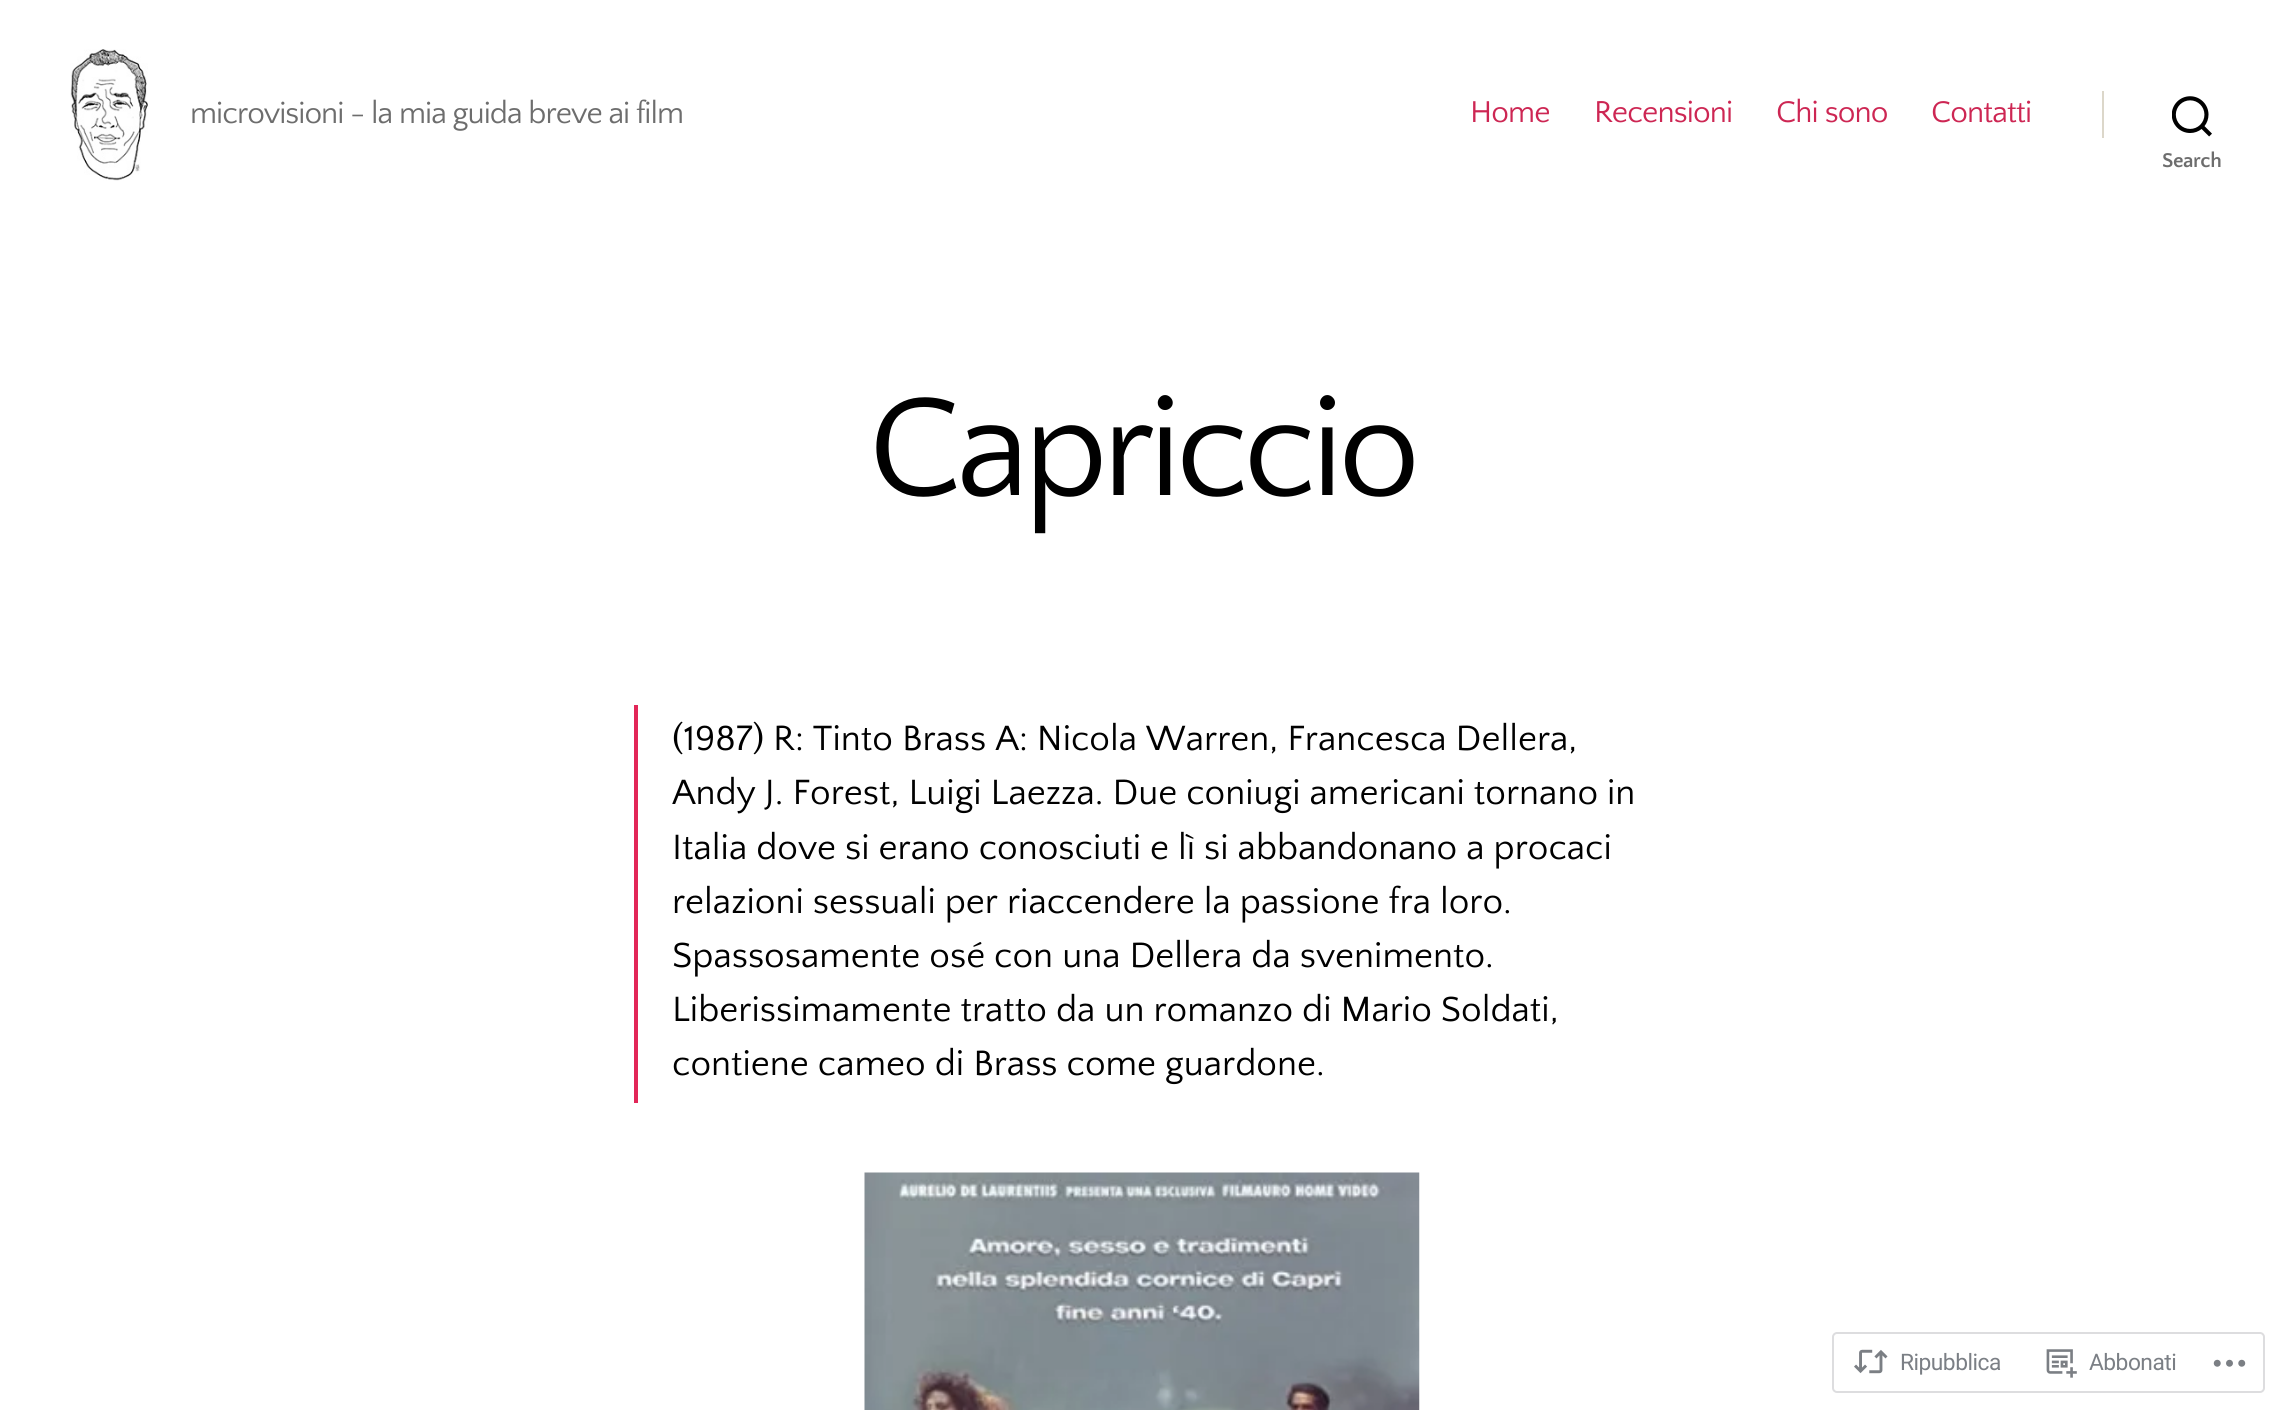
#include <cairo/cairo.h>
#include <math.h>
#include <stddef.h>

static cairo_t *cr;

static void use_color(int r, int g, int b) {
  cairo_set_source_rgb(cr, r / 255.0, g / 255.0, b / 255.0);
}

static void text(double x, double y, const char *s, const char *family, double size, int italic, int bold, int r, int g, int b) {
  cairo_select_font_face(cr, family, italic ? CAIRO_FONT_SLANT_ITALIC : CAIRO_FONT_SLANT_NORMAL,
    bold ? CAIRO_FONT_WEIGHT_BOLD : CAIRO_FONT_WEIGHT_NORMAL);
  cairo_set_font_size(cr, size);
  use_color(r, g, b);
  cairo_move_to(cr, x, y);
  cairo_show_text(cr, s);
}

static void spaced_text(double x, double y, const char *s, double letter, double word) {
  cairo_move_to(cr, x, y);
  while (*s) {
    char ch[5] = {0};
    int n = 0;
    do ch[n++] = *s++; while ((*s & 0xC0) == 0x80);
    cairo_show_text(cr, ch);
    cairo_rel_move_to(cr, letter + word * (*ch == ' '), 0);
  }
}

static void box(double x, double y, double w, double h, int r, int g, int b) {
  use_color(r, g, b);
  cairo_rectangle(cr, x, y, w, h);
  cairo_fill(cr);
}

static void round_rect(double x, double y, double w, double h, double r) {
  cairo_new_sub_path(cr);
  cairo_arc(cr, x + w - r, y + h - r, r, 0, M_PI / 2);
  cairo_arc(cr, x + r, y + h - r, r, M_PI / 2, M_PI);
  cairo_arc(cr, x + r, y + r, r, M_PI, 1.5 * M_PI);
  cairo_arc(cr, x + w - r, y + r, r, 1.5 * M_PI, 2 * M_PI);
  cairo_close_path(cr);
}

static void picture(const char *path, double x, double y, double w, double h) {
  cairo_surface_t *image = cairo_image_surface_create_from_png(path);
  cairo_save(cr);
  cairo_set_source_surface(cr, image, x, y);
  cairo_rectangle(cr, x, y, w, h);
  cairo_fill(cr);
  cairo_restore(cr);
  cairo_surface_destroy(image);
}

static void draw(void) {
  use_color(255, 255, 255);
  cairo_paint(cr);
  picture("img_01.png", 70, 49, 78, 132);
  box(2102, 91, 2, 47, 220, 215, 202);
  picture("img_02.png", 2172, 96, 40, 41);
  box(634, 705, 4, 398, 226, 38, 88);
  picture("img_03.png", 864, 1172, 556, 238);
  round_rect(1833, 1333, 431, 59, 4);
  use_color(221, 221, 223);
  cairo_stroke(cr);
  picture("img_04.png", 1854, 1349, 34, 25);
  picture("img_05.png", 2046, 1349, 31, 29);
  picture("img_06.png", 2213, 1359, 33, 8);
  cairo_select_font_face(cr, "Quattrocento Sans", CAIRO_FONT_SLANT_NORMAL, CAIRO_FONT_WEIGHT_NORMAL);
  cairo_set_font_size(cr, 31.5);
  use_color(109, 109, 109);
  spaced_text(190, 123, "microvisioni - la mia guida breve ai film", -1, 0);
  use_color(205, 38, 83);
  spaced_text(1470, 122, "Home", -0.9, 0);
  spaced_text(1594, 122, "Recensioni", -0.9, 0);
  spaced_text(1776, 122, "Chi sono", -0.9, 0);
  spaced_text(1931, 122, "Contatti", -0.9, 0);
  cairo_select_font_face(cr, "Quattrocento Sans", CAIRO_FONT_SLANT_NORMAL, CAIRO_FONT_WEIGHT_BOLD);
  cairo_set_font_size(cr, 21);
  use_color(109, 109, 109);
  spaced_text(2162, 167, "Search", -0.5, 0);
  cairo_select_font_face(cr, "Quattrocento Sans", CAIRO_FONT_SLANT_NORMAL, CAIRO_FONT_WEIGHT_NORMAL);
  cairo_set_font_size(cr, 147);
  use_color(0, 0, 0);
  spaced_text(868, 495, "Capriccio", -6, 0);
  text(672, 750, "(1987) R: Tinto Brass A: Nicola Warren, Francesca Dellera,", "Quattrocento Sans", 36.75, 0, 0, 0, 0, 0);
  text(672, 804, "Andy J. Forest, Luigi Laezza. Due coniugi americani tornano in", "Quattrocento Sans", 36.75, 0, 0, 0, 0, 0);
  text(672, 859, "Italia dove si erano conosciuti e lì si abbandonano a procaci", "Quattrocento Sans", 36.75, 0, 0, 0, 0, 0);
  text(672, 913, "relazioni sessuali per riaccendere la passione fra loro.", "Quattrocento Sans", 36.75, 0, 0, 0, 0, 0);
  text(672, 967, "Spassosamente osé con una Dellera da svenimento.", "Quattrocento Sans", 36.75, 0, 0, 0, 0, 0);
  text(672, 1021, "Liberissimamente tratto da un romanzo di Mario Soldati,", "Quattrocento Sans", 36.75, 0, 0, 0, 0, 0);
  text(672, 1075, "contiene cameo di Brass come guardone.", "Quattrocento Sans", 36.75, 0, 0, 0, 0, 0);
  cairo_select_font_face(cr, "Roboto", CAIRO_FONT_SLANT_NORMAL, CAIRO_FONT_WEIGHT_NORMAL);
  cairo_set_font_size(cr, 22.75);
  use_color(123, 127, 133);
  spaced_text(1900, 1370, "Ripubblica", -0.5, 0);
  spaced_text(2089, 1370, "Abbonati", -0.5, 0);
}

int main(void) {
  cairo_surface_t *surface = cairo_image_surface_create(CAIRO_FORMAT_RGB24, 2282, 1410);
  cr = cairo_create(surface);
  cairo_font_options_t *options = cairo_font_options_create();
  cairo_font_options_set_hint_metrics(options, CAIRO_HINT_METRICS_OFF);
  cairo_font_options_set_hint_style(options, CAIRO_HINT_STYLE_NONE);
  cairo_set_font_options(cr, options);
  cairo_set_miter_limit(cr, 4);
  draw();
  cairo_surface_write_to_png(surface, "out.png");
  cairo_font_options_destroy(options);
  cairo_destroy(cr);
  cairo_surface_destroy(surface);
  return 0;
}
